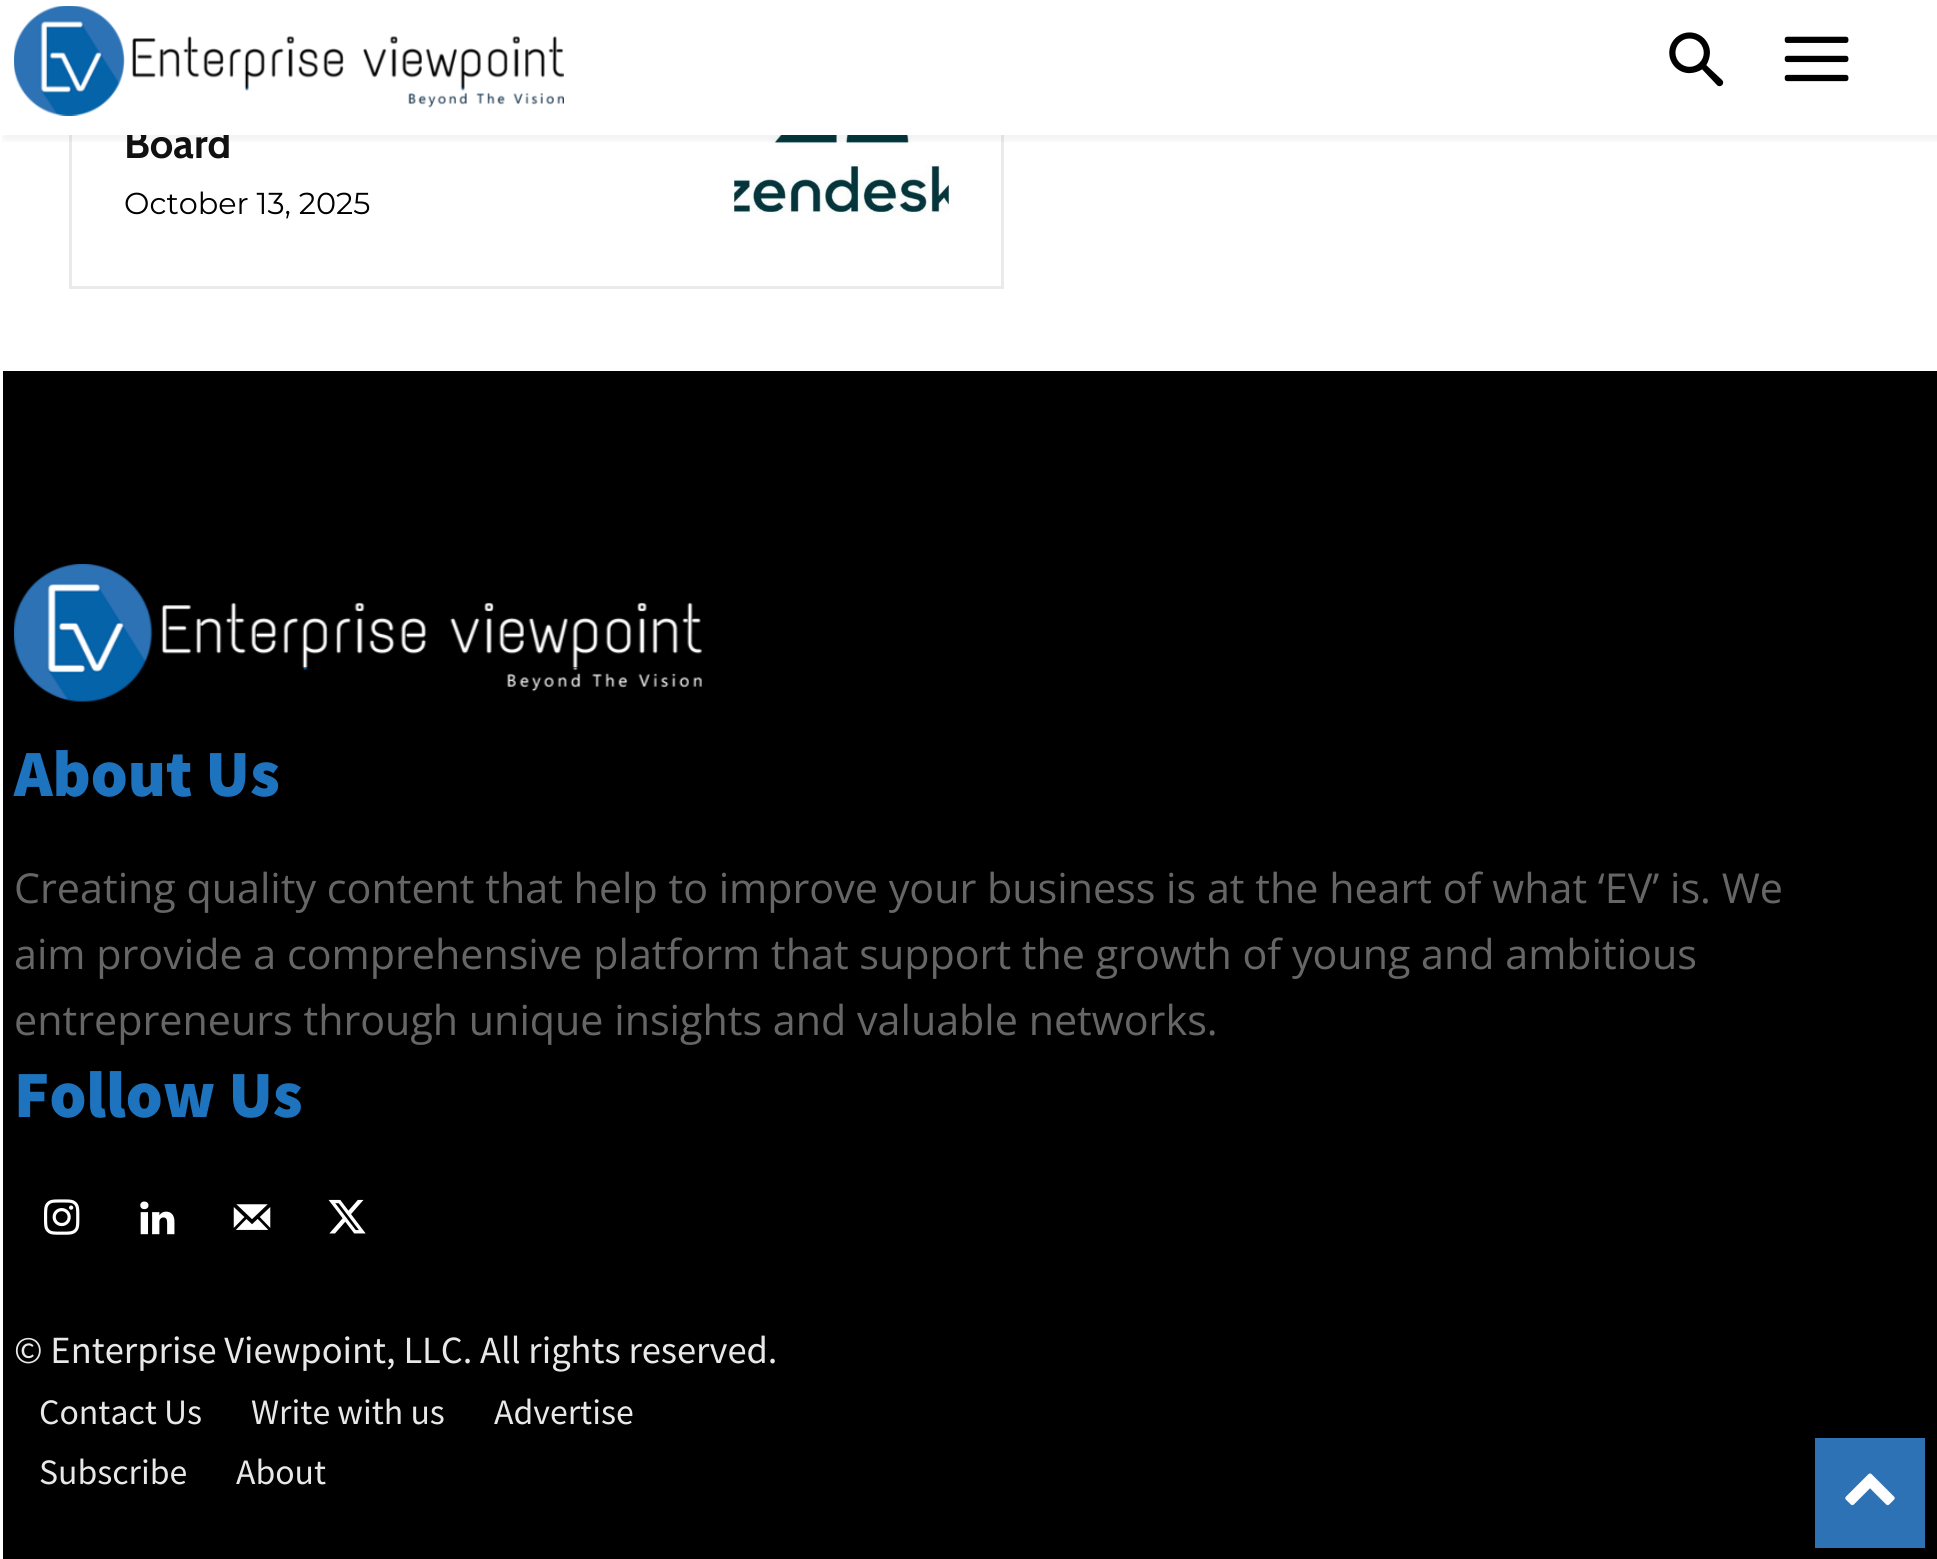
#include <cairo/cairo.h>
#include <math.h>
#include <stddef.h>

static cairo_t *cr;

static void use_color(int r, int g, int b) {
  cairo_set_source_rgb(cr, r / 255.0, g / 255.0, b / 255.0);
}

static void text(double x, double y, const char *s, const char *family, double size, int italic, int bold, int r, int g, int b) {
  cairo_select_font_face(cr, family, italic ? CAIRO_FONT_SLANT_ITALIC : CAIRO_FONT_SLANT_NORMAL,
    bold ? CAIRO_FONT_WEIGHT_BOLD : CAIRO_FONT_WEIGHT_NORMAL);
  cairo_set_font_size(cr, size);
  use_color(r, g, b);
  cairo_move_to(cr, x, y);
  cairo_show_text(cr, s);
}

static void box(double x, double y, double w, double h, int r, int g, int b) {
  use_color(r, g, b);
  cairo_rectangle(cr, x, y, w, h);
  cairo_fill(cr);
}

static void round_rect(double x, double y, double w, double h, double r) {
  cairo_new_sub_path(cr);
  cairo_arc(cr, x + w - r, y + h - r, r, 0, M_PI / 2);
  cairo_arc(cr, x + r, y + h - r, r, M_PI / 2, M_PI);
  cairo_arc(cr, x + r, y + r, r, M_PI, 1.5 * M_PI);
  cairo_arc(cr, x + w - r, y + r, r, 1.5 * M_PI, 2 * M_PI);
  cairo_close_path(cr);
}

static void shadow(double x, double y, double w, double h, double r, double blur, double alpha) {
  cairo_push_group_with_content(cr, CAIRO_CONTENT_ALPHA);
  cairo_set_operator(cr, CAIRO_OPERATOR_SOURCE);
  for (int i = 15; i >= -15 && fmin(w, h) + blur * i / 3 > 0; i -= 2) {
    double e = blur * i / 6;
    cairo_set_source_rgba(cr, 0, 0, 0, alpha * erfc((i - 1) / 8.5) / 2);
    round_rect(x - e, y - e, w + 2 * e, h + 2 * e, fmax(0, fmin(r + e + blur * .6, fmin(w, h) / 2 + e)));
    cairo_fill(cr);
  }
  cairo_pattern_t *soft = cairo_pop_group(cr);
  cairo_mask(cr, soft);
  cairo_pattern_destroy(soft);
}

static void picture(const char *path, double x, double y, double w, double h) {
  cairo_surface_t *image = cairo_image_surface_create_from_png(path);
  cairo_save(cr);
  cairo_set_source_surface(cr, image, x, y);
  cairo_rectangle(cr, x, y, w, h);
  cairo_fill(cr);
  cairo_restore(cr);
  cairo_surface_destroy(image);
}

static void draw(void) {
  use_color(255, 255, 255);
  cairo_paint(cr);
  picture("img_02.png", 1669, 32, 55, 55);
  picture("img_03.png", 1784, 36, 65, 46);
  cairo_rectangle(cr, 70.5, -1.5, 932, 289);
  use_color(234, 234, 234);
  cairo_set_line_width(cr, 3);
  cairo_stroke(cr);
  picture("img_04.png", 734, 135, 215, 82);
  box(3, 371, 1934, 1188, 0, 0, 0);
  picture("img_05.png", 14, 564, 688, 138);
  picture("img_06.png", 44, 1199, 36, 36);
  picture("img_07.png", 140, 1201, 35, 34);
  picture("img_08.png", 233, 1204, 38, 26);
  picture("img_09.png", 328, 1199, 38, 35);
  box(1815, 1438, 110, 110, 44, 114, 181);
  picture("img_10.png", 1845, 1473, 50, 33);
  text(124, 158, "Board", "Cabin", 41.25, 0, 1, 17, 17, 17);
  box(69, 0, 935, 135, 255, 255, 255);
  picture("img_01.png", 14, 6, 550, 110);
  cairo_save(cr);
  cairo_rectangle(cr, 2, 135, 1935, 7);
  cairo_clip(cr);
  use_color(0, 0, 0);
  shadow(3, 6, 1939, 134, 0, 5.5, 0.06);
  cairo_restore(cr);
  text(124, 214, "October 13, 2025", "Montserrat", 30.25, 0, 0, 0, 0, 0);
  text(14, 796, "About Us", "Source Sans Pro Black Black", 66, 0, 0, 30, 115, 190);
  text(14, 903, "Creating quality content that help to improve your business is at the heart of what ‘EV’ is. We", "Open Sans", 41.25, 0, 0, 102, 102, 102);
  text(14, 969, "aim provide a comprehensive platform that support the growth of young and ambitious", "Open Sans", 41.25, 0, 0, 102, 102, 102);
  text(14, 1035, "entrepreneurs through unique insights and valuable networks.", "Open Sans", 41.25, 0, 0, 102, 102, 102);
  text(14, 1117, "Follow Us", "Source Sans Pro Black Black", 66, 0, 0, 30, 115, 190);
  text(14, 1363, "© Enterprise Viewpoint, LLC. All rights reserved.", "Source Sans Pro", 38.5, 0, 0, 232, 232, 232);
  text(39, 1424, "Contact Us", "Source Sans Pro", 35.75, 0, 0, 232, 232, 232);
  text(251, 1424, "Write with us", "Source Sans Pro", 35.75, 0, 0, 232, 232, 232);
  text(494, 1424, "Advertise", "Source Sans Pro", 35.75, 0, 0, 232, 232, 232);
  text(39, 1484, "Subscribe", "Source Sans Pro", 35.75, 0, 0, 232, 232, 232);
  text(236, 1484, "About", "Source Sans Pro", 35.75, 0, 0, 232, 232, 232);
}

int main(void) {
  cairo_surface_t *surface = cairo_image_surface_create(CAIRO_FORMAT_RGB24, 1937, 1559);
  cr = cairo_create(surface);
  cairo_font_options_t *options = cairo_font_options_create();
  cairo_font_options_set_hint_metrics(options, CAIRO_HINT_METRICS_OFF);
  cairo_font_options_set_hint_style(options, CAIRO_HINT_STYLE_NONE);
  cairo_set_font_options(cr, options);
  cairo_set_miter_limit(cr, 4);
  draw();
  cairo_surface_write_to_png(surface, "out.png");
  cairo_font_options_destroy(options);
  cairo_destroy(cr);
  cairo_surface_destroy(surface);
  return 0;
}
